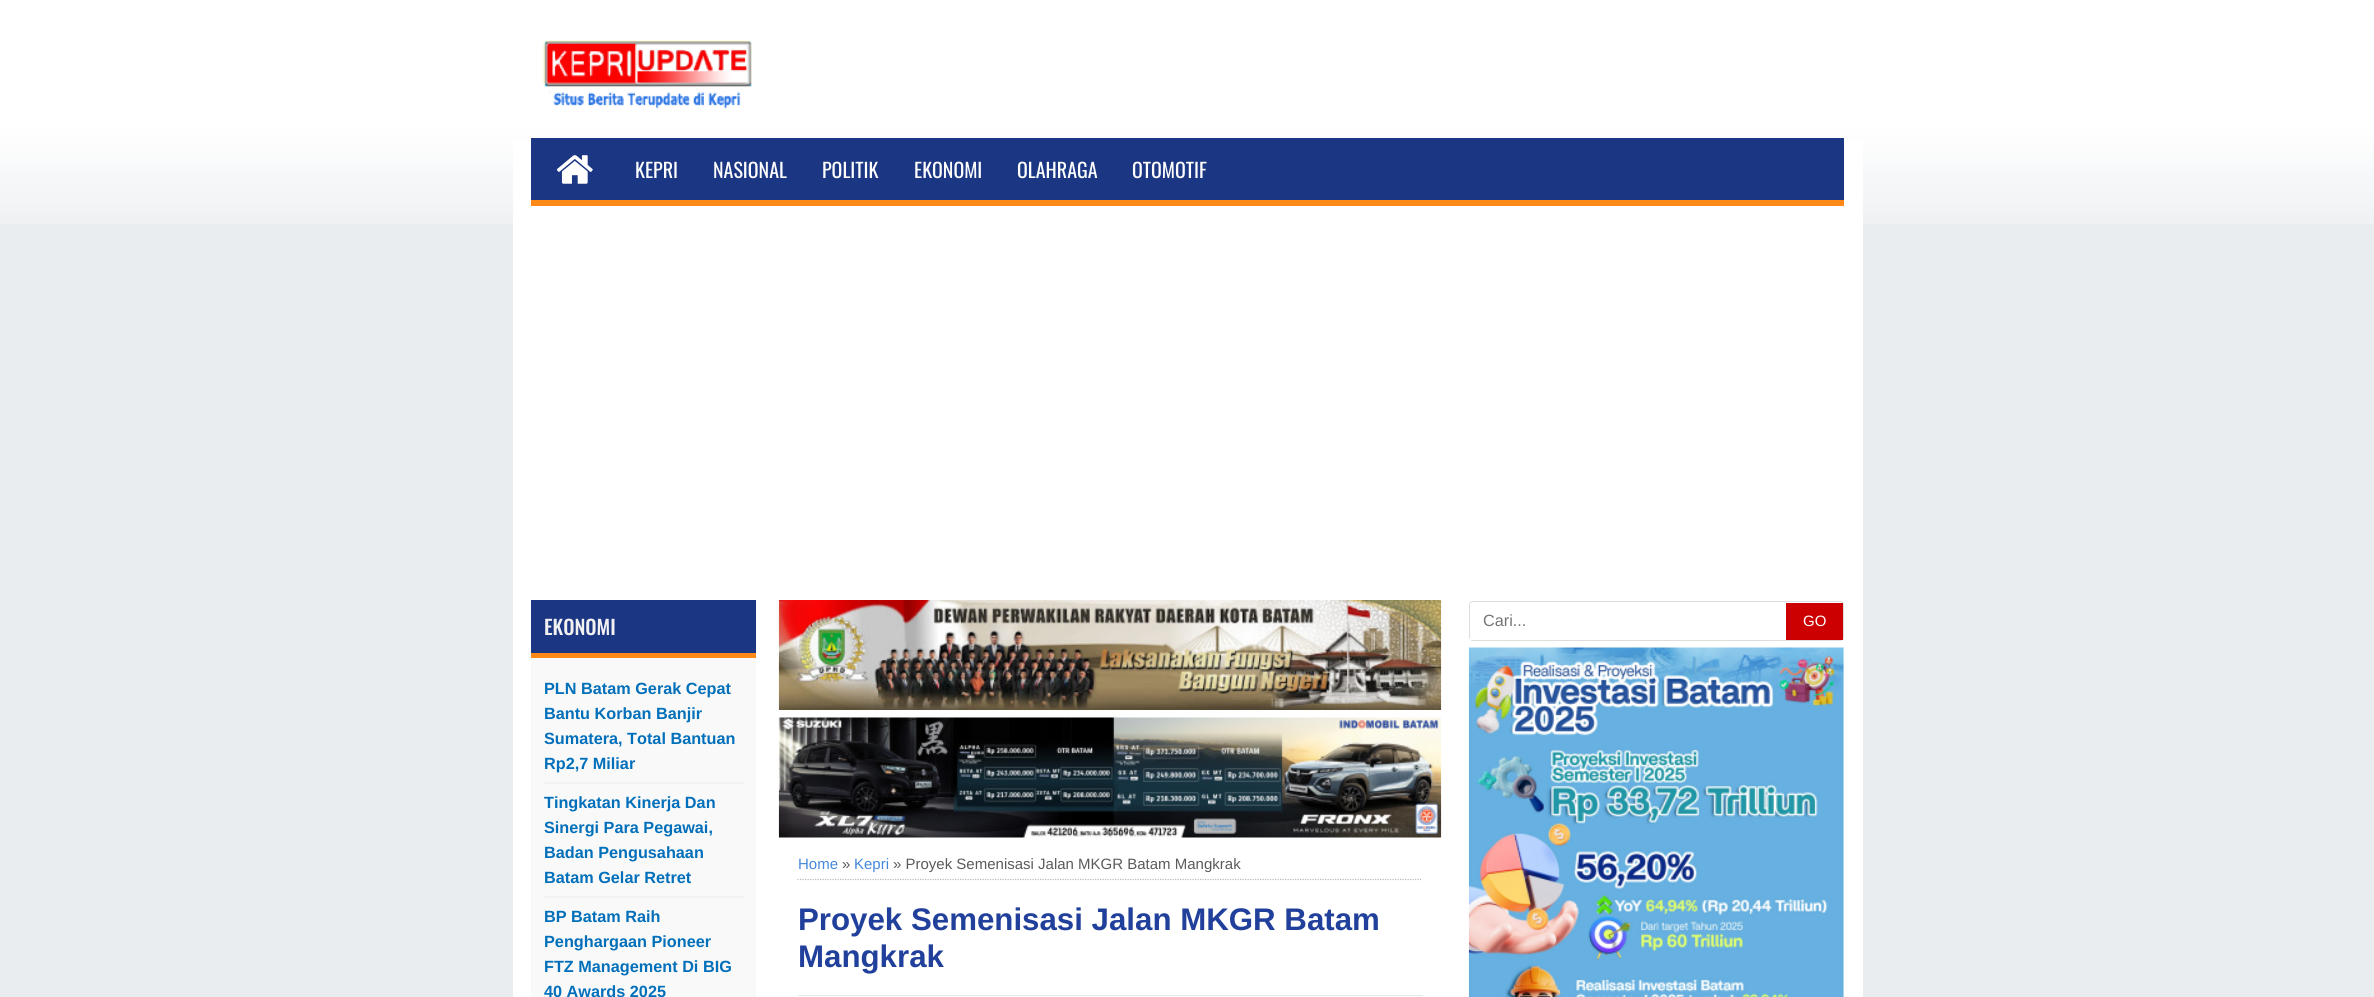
#include <cairo/cairo.h>
#include <math.h>
#include <stddef.h>

static cairo_t *cr;

static void use_color(int r, int g, int b) {
  cairo_set_source_rgb(cr, r / 255.0, g / 255.0, b / 255.0);
}

static void text(double x, double y, const char *s, const char *family, double size, int italic, int bold, int r, int g, int b) {
  cairo_select_font_face(cr, family, italic ? CAIRO_FONT_SLANT_ITALIC : CAIRO_FONT_SLANT_NORMAL,
    bold ? CAIRO_FONT_WEIGHT_BOLD : CAIRO_FONT_WEIGHT_NORMAL);
  cairo_set_font_size(cr, size);
  use_color(r, g, b);
  cairo_move_to(cr, x, y);
  cairo_show_text(cr, s);
}

static void box(double x, double y, double w, double h, int r, int g, int b) {
  use_color(r, g, b);
  cairo_rectangle(cr, x, y, w, h);
  cairo_fill(cr);
}

static void round_rect(double x, double y, double w, double h, double r) {
  cairo_new_sub_path(cr);
  cairo_arc(cr, x + w - r, y + h - r, r, 0, M_PI / 2);
  cairo_arc(cr, x + r, y + h - r, r, M_PI / 2, M_PI);
  cairo_arc(cr, x + r, y + r, r, M_PI, 1.5 * M_PI);
  cairo_arc(cr, x + w - r, y + r, r, 1.5 * M_PI, 2 * M_PI);
  cairo_close_path(cr);
}

static void picture(const char *path, double x, double y, double w, double h) {
  cairo_surface_t *image = cairo_image_surface_create_from_png(path);
  cairo_save(cr);
  cairo_set_source_surface(cr, image, x, y);
  cairo_rectangle(cr, x, y, w, h);
  cairo_fill(cr);
  cairo_restore(cr);
  cairo_surface_destroy(image);
}

static void draw(void) {
  use_color(234, 237, 240);
  cairo_paint(cr);
  picture("img_01.png", 0, 0, 2374, 224);
  box(513, 140, 1350, 857, 255, 255, 255);
  picture("img_02.png", 542, 39, 210, 70);
  box(531, 200, 1313, 6, 254, 137, 23);
  box(531, 138, 1313, 62, 27, 54, 130);
  picture("img_03.png", 556, 155, 37, 29);
  box(531, 658, 225, 339, 249, 249, 249);
  box(531, 600, 225, 53, 27, 54, 130);
  box(531, 653, 225, 5, 254, 137, 23);
  cairo_new_path(cr);
  cairo_move_to(cr, 544, 783);
  cairo_line_to(cr, 744, 783);
  use_color(224, 224, 224);
  cairo_set_line_width(cr, 1.2);
  cairo_set_dash(cr, (double[]){1.25, 1.25}, 2, 0);
  cairo_stroke(cr);
  cairo_new_path(cr);
  cairo_move_to(cr, 544, 897);
  cairo_line_to(cr, 744, 897);
  cairo_stroke(cr);
  picture("img_04.png", 778, 600, 664, 110);
  picture("img_05.png", 778, 717, 664, 121);
  cairo_new_path(cr);
  cairo_move_to(cr, 797.5, 879.5);
  cairo_line_to(cr, 1422.5, 879.5);
  use_color(187, 187, 187);
  cairo_stroke(cr);
  box(798, 995, 625, 1, 233, 233, 233);
  round_rect(1469.5, 601.5, 374, 39, 3.5);
  use_color(221, 221, 221);
  cairo_set_line_width(cr, 1);
  cairo_set_dash(cr, NULL, 0, 0);
  cairo_stroke(cr);
  box(1470, 603, 3, 37, 255, 255, 255);
  box(1786, 603, 57, 37, 204, 0, 0);
  picture("img_06.png", 1468, 647, 376, 350);
  text(635, 178, "KEPRI", "Oswald", 20, 0, 0, 255, 255, 255);
  text(713, 178, "NASIONAL", "Oswald", 20, 0, 0, 255, 255, 255);
  text(822, 178, "POLITIK", "Oswald", 20, 0, 0, 255, 255, 255);
  text(914, 178, "EKONOMI", "Oswald", 20, 0, 0, 255, 255, 255);
  text(1017, 178, "OLAHRAGA", "Oswald", 20, 0, 0, 255, 255, 255);
  text(1132, 178, "OTOMOTIF", "Oswald", 20, 0, 0, 255, 255, 255);
  text(544, 635, "EKONOMI", "Oswald Medium", 20, 0, 0, 241, 241, 241);
  text(544, 694, "PLN Batam Gerak Cepat", "Liberation Sans", 16.25, 0, 1, 1, 111, 186);
  text(544, 719, "Bantu Korban Banjir", "Liberation Sans", 16.25, 0, 1, 1, 111, 186);
  text(544, 744, "Sumatera, Total Bantuan", "Liberation Sans", 16.25, 0, 1, 1, 111, 186);
  text(544, 769, "Rp2,7 Miliar", "Liberation Sans", 16.25, 0, 1, 1, 111, 186);
  text(544, 808, "Tingkatan Kinerja Dan", "Liberation Sans", 16.25, 0, 1, 1, 111, 186);
  text(544, 833, "Sinergi Para Pegawai,", "Liberation Sans", 16.25, 0, 1, 1, 111, 186);
  text(544, 858, "Badan Pengusahaan", "Liberation Sans", 16.25, 0, 1, 1, 111, 186);
  text(544, 883, "Batam Gelar Retret", "Liberation Sans", 16.25, 0, 1, 1, 111, 186);
  text(544, 922, "BP Batam Raih", "Liberation Sans", 16.25, 0, 1, 1, 111, 186);
  text(544, 947, "Penghargaan Pioneer", "Liberation Sans", 16.25, 0, 1, 1, 111, 186);
  text(544, 972, "FTZ Management Di BIG", "Liberation Sans", 16.25, 0, 1, 1, 111, 186);
  text(544, 997, "40 Awards 2025", "Liberation Sans", 16.25, 0, 1, 1, 111, 186);
  text(798, 869, "Home", "Liberation Sans", 15, 0, 0, 68, 136, 221);
  text(842, 869, "»", "Liberation Sans", 15, 0, 0, 91, 91, 91);
  text(854, 869, "Kepri", "Liberation Sans", 15, 0, 0, 68, 136, 221);
  text(893, 869, "» Proyek Semenisasi Jalan MKGR Batam Mangkrak", "Liberation Sans", 15, 0, 0, 91, 91, 91);
  text(798, 930, "Proyek Semenisasi Jalan MKGR Batam", "Liberation Sans", 31.25, 0, 1, 33, 64, 155);
  text(798, 967, "Mangkrak", "Liberation Sans", 31.25, 0, 1, 33, 64, 155);
  text(1483, 626, "Cari...", "Liberation Sans", 16.25, 0, 0, 117, 117, 117);
  text(1803, 626, "GO", "Liberation Sans", 15, 0, 0, 255, 255, 255);
}

int main(void) {
  cairo_surface_t *surface = cairo_image_surface_create(CAIRO_FORMAT_RGB24, 2374, 997);
  cr = cairo_create(surface);
  cairo_font_options_t *options = cairo_font_options_create();
  cairo_font_options_set_hint_metrics(options, CAIRO_HINT_METRICS_OFF);
  cairo_font_options_set_hint_style(options, CAIRO_HINT_STYLE_NONE);
  cairo_set_font_options(cr, options);
  cairo_set_miter_limit(cr, 4);
  draw();
  cairo_surface_write_to_png(surface, "out.png");
  cairo_font_options_destroy(options);
  cairo_destroy(cr);
  cairo_surface_destroy(surface);
  return 0;
}
